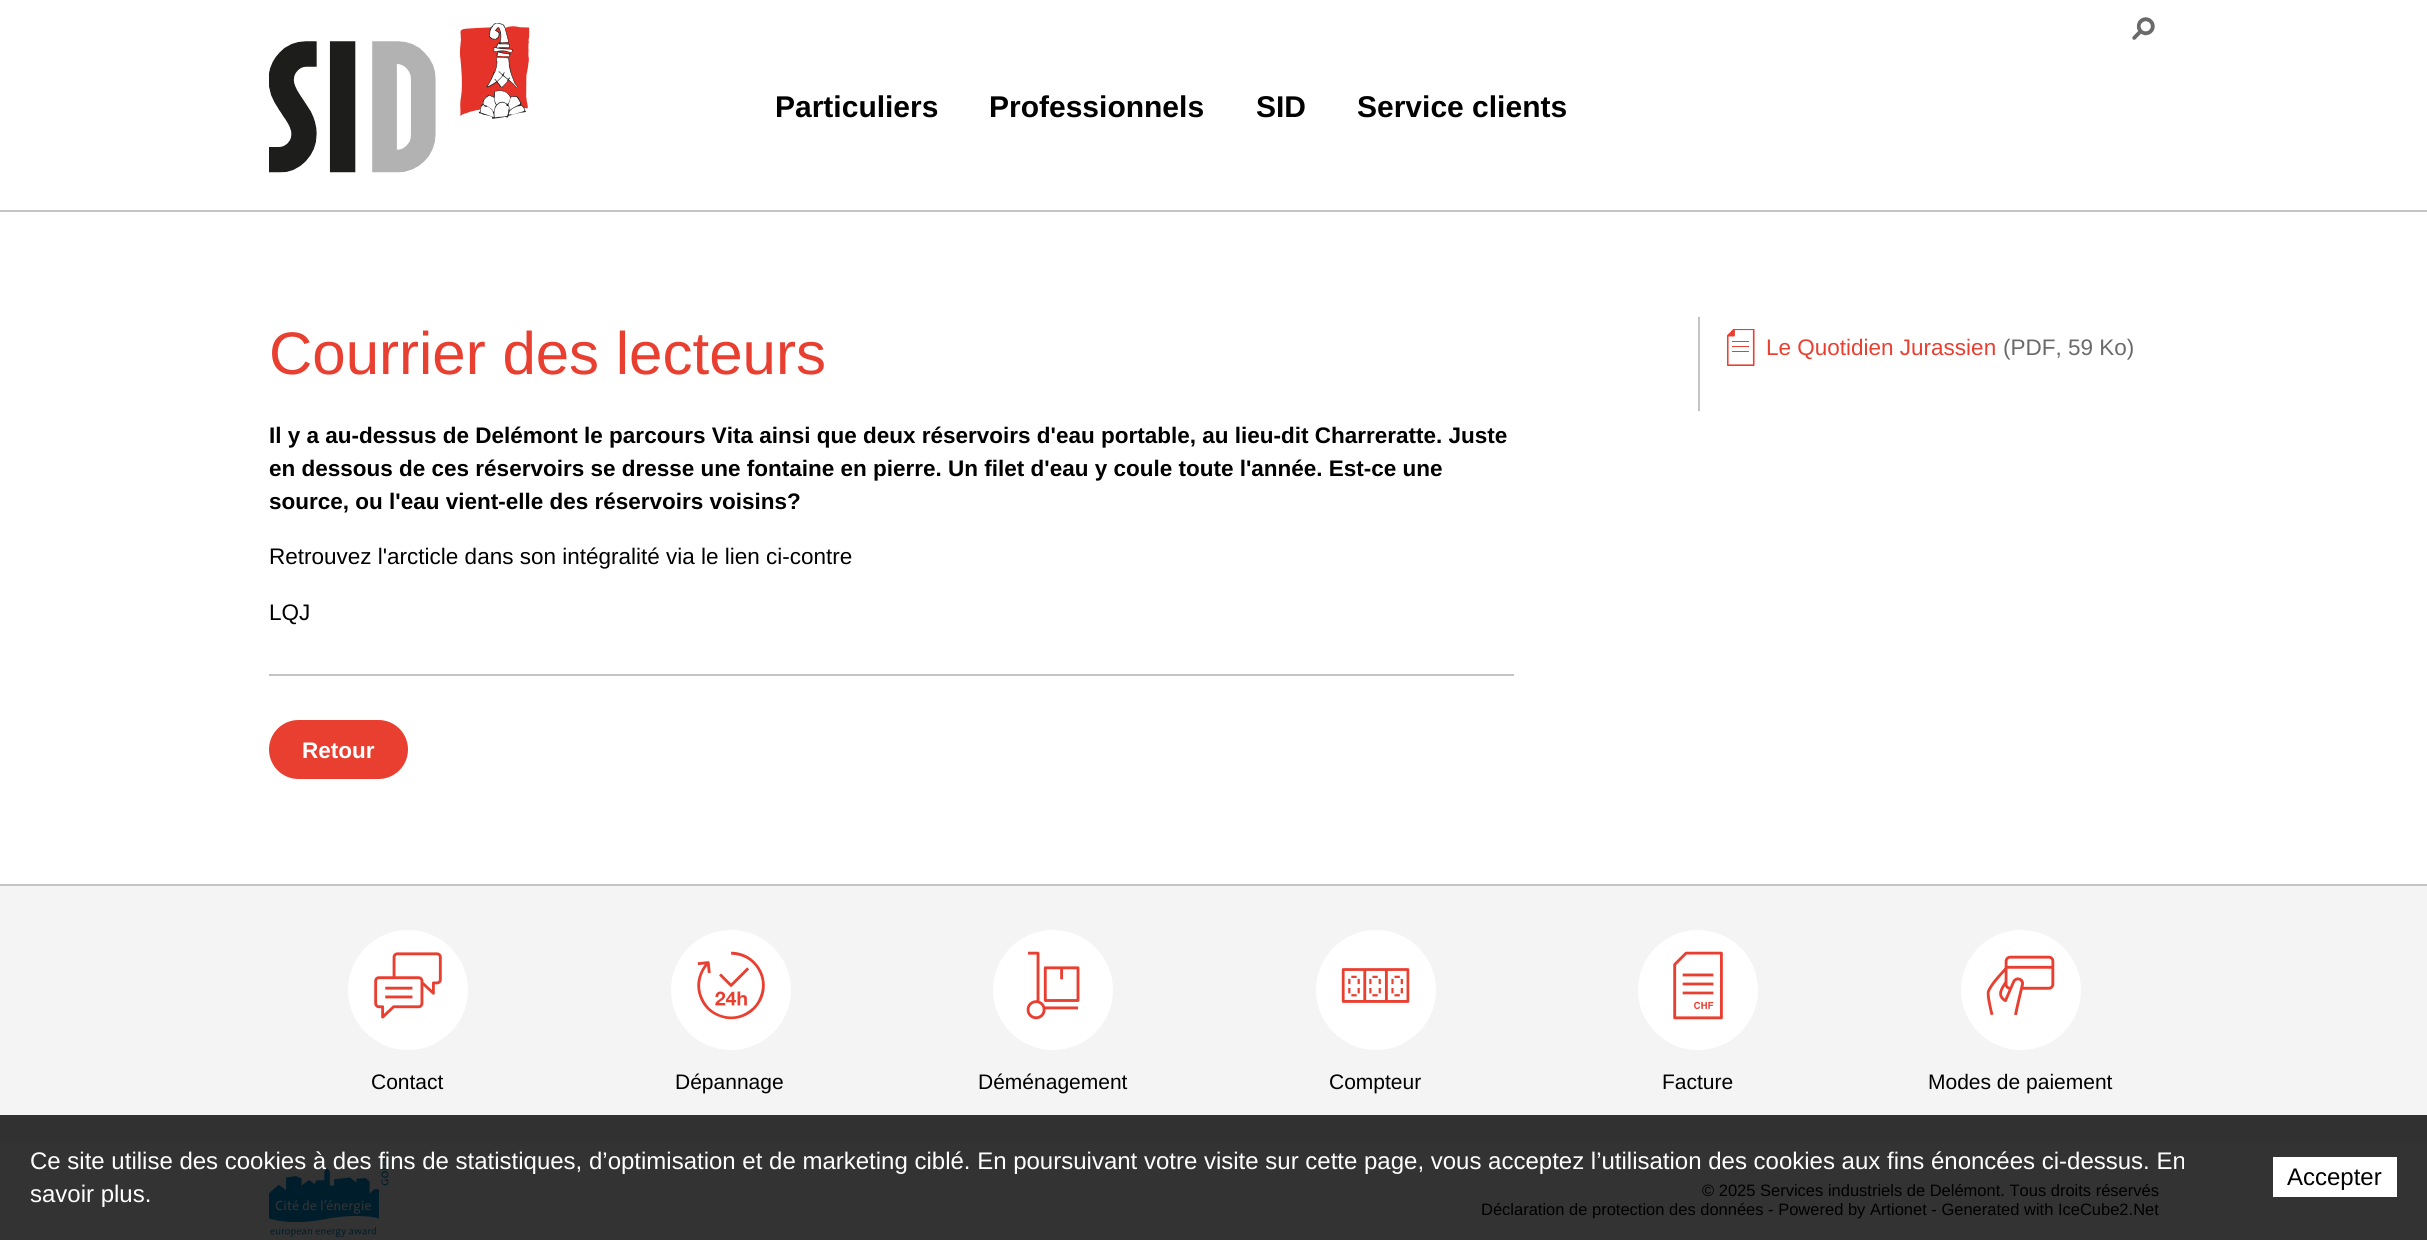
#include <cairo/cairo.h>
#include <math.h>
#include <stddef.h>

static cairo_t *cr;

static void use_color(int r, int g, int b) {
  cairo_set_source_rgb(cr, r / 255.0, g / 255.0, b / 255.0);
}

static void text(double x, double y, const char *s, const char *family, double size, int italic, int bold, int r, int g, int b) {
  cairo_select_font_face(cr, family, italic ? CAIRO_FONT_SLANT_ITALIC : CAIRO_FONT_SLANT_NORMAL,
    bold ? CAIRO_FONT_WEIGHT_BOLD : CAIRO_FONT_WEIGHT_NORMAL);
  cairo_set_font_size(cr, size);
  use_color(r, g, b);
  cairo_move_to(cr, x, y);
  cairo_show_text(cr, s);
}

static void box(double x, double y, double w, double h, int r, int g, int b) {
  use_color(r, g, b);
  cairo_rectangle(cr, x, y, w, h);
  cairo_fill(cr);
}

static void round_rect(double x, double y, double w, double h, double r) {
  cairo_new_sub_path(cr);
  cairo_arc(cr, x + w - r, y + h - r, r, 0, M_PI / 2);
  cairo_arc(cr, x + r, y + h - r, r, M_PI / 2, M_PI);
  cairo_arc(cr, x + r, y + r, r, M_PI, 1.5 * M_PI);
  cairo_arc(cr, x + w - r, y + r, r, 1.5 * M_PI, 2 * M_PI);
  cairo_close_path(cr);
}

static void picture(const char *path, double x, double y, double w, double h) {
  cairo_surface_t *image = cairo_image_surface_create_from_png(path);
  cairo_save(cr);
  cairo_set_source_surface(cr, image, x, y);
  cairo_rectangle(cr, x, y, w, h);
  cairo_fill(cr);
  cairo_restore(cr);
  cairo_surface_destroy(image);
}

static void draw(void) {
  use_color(255, 255, 255);
  cairo_paint(cr);
  box(0, 1143, 2427, 97, 51, 51, 51);
  box(0, 210, 2427, 2, 196, 196, 196);
  picture("img_01.png", 2132, 17, 23, 23);
  picture("img_02.png", 269, 23, 261, 150);
  box(269, 674, 1245, 2, 196, 196, 196);
  use_color(232, 63, 49);
  round_rect(269, 720, 139, 59, 29.5);
  cairo_fill(cr);
  box(1698, 317, 2, 94, 196, 196, 196);
  picture("img_03.png", 1727, 329, 28, 37);
  box(0, 886, 2427, 229, 244, 244, 244);
  box(0, 1115, 2427, 28, 49, 49, 49);
  box(0, 884, 2427, 2, 196, 196, 196);
  use_color(255, 255, 255);
  cairo_arc(cr, 408, 990, 60, 0, 2 * M_PI);
  cairo_fill(cr);
  picture("img_04.png", 374, 952, 68, 67);
  cairo_arc(cr, 731, 990, 60, 0, 2 * M_PI);
  cairo_fill(cr);
  picture("img_05.png", 697, 951, 68, 69);
  cairo_arc(cr, 1053, 990, 60, 0, 2 * M_PI);
  cairo_fill(cr);
  picture("img_06.png", 1026, 951, 54, 69);
  cairo_arc(cr, 1376, 990, 60, 0, 2 * M_PI);
  cairo_fill(cr);
  picture("img_07.png", 1341, 968, 69, 35);
  cairo_arc(cr, 1698, 990, 60, 0, 2 * M_PI);
  cairo_fill(cr);
  picture("img_08.png", 1673, 951, 50, 69);
  cairo_arc(cr, 2021, 990, 60, 0, 2 * M_PI);
  cairo_fill(cr);
  picture("img_09.png", 1986, 955, 69, 61);
  picture("img_10.png", 269, 1159, 120, 78);
  box(2273, 1157, 124, 40, 255, 255, 255);
  text(775, 117, "Particuliers", "Liberation Sans", 30, 0, 1, 0, 0, 0);
  text(989, 117, "Professionnels", "Liberation Sans", 30, 0, 1, 0, 0, 0);
  text(1256, 117, "SID", "Liberation Sans", 30, 0, 1, 0, 0, 0);
  text(1357, 117, "Service clients", "Liberation Sans", 30, 0, 1, 0, 0, 0);
  text(269, 374, "Courrier des lecteurs", "Liberation Sans", 60, 0, 0, 232, 63, 49);
  text(269, 443, "Il y a au-dessus de Delémont le parcours Vita ainsi que deux réservoirs d'eau portable, au lieu-dit Charreratte. Juste", "Liberation Sans", 22.5, 0, 1, 0, 0, 0);
  text(269, 476, "en dessous de ces réservoirs se dresse une fontaine en pierre. Un filet d'eau y coule toute l'année. Est-ce une", "Liberation Sans", 22.5, 0, 1, 0, 0, 0);
  text(269, 509, "source, ou l'eau vient-elle des réservoirs voisins?", "Liberation Sans", 22.5, 0, 1, 0, 0, 0);
  text(269, 564, "Retrouvez l'arcticle dans son intégralité via le lien ci-contre", "Liberation Sans", 22.5, 0, 0, 0, 0, 0);
  text(269, 620, "LQJ", "Liberation Sans", 22.5, 0, 0, 0, 0, 0);
  text(302, 758, "Retour", "Liberation Sans", 22.5, 0, 1, 255, 255, 255);
  text(1766, 355, "Le Quotidien Jurassien", "Liberation Sans", 22.5, 0, 0, 232, 63, 49);
  text(2003, 355, "(PDF, 59 Ko)", "Liberation Sans", 22.5, 0, 0, 106, 106, 106);
  text(371, 1089, "Contact", "Liberation Sans", 21, 0, 0, 0, 0, 0);
  text(675, 1089, "Dépannage", "Liberation Sans", 21, 0, 0, 0, 0, 0);
  text(978, 1089, "Déménagement", "Liberation Sans", 21, 0, 0, 0, 0, 0);
  text(1329, 1089, "Compteur", "Liberation Sans", 21, 0, 0, 0, 0, 0);
  text(1662, 1089, "Facture", "Liberation Sans", 21, 0, 0, 0, 0, 0);
  text(1928, 1089, "Modes de paiement", "Liberation Sans", 21, 0, 0, 0, 0, 0);
  text(1702, 1196, "© 2025 Services industriels de Delémont. Tous droits réservés", "Liberation Sans", 16.5, 0, 0, 0, 0, 0);
  text(1481, 1215, "Déclaration de protection des données - Powered by Artionet - Generated with IceCube2.Net", "Liberation Sans", 16.5, 0, 0, 0, 0, 0);
  text(30, 1169, "Ce site utilise des cookies à des fins de statistiques, d’optimisation et de marketing ciblé. En poursuivant votre visite sur cette page, vous acceptez l’utilisation des cookies aux fins énoncées ci-dessus. En", "Liberation Sans", 24, 0, 0, 255, 255, 255);
  text(30, 1202, "savoir plus.", "Liberation Sans", 24, 0, 0, 255, 255, 255);
  text(2287, 1185, "Accepter", "Liberation Sans", 24, 0, 0, 0, 0, 0);
}

int main(void) {
  cairo_surface_t *surface = cairo_image_surface_create(CAIRO_FORMAT_RGB24, 2427, 1240);
  cr = cairo_create(surface);
  cairo_font_options_t *options = cairo_font_options_create();
  cairo_font_options_set_hint_metrics(options, CAIRO_HINT_METRICS_OFF);
  cairo_font_options_set_hint_style(options, CAIRO_HINT_STYLE_NONE);
  cairo_set_font_options(cr, options);
  cairo_set_miter_limit(cr, 4);
  draw();
  cairo_surface_write_to_png(surface, "out.png");
  cairo_font_options_destroy(options);
  cairo_destroy(cr);
  cairo_surface_destroy(surface);
  return 0;
}
